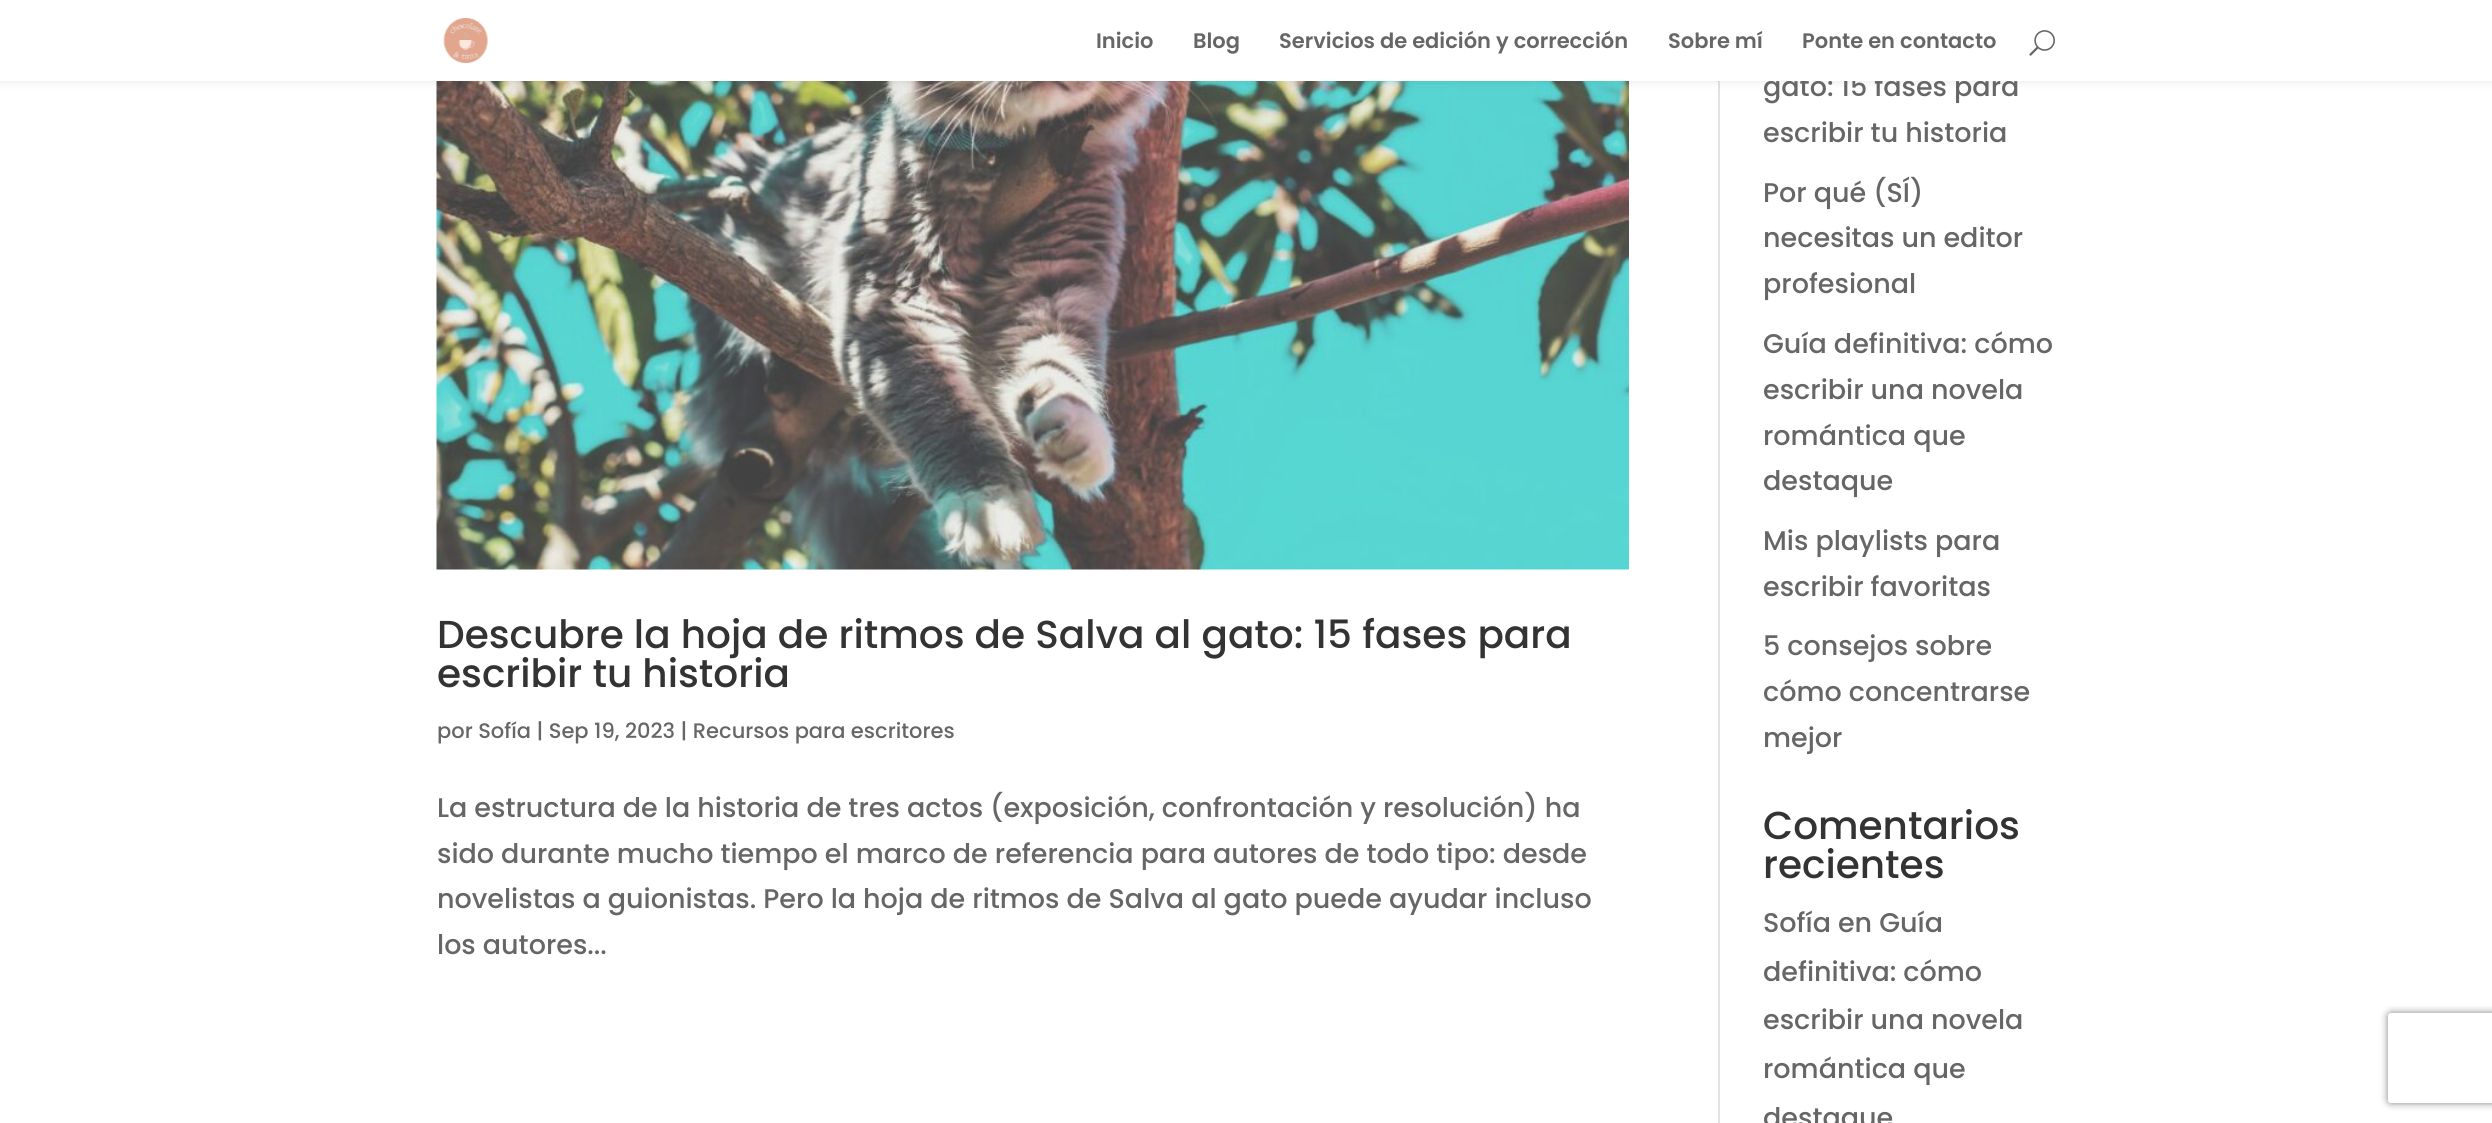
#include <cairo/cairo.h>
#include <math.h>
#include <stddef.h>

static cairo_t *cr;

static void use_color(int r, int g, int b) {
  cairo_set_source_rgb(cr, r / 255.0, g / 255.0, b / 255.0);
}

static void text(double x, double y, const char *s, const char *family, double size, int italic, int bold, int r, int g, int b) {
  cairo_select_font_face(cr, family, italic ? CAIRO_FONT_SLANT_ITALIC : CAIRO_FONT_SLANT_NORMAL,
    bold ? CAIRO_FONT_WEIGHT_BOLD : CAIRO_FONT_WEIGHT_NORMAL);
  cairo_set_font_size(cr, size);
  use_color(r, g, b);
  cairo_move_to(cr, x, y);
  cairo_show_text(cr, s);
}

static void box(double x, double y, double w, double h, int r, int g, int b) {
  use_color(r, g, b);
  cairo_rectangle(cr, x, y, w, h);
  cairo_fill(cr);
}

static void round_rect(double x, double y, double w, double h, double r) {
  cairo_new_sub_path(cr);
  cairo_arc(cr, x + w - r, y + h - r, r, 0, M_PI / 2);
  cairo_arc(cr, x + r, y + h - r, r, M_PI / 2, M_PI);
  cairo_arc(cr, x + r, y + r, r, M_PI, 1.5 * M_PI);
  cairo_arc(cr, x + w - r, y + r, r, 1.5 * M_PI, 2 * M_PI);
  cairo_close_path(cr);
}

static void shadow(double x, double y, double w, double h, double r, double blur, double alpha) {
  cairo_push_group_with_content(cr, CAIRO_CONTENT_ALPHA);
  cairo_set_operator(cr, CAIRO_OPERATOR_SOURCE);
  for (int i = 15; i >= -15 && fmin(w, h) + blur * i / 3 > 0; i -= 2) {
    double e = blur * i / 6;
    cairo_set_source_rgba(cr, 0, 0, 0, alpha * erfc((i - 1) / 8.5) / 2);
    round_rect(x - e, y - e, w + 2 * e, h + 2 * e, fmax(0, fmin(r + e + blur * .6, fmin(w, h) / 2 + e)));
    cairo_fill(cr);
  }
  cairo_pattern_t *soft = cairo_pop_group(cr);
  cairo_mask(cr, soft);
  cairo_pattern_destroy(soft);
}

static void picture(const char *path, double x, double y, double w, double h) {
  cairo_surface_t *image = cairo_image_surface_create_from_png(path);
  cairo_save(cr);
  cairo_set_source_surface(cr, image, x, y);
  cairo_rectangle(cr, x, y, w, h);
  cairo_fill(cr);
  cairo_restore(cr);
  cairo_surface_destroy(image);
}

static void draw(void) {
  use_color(255, 255, 255);
  cairo_paint(cr);
  picture("img_03.png", 436, 81, 1193, 489);
  box(1718, 81, 2, 1042, 226, 226, 226);
  use_color(0, 0, 0);
  shadow(0, 0, 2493, 81, 0, 5, 0.1);
  cairo_save(cr);
  cairo_set_fill_rule(cr, CAIRO_FILL_RULE_EVEN_ODD);
  cairo_new_path(cr);
  cairo_move_to(cr, 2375, 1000);
  cairo_line_to(cr, 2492, 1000);
  cairo_line_to(cr, 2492, 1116);
  cairo_line_to(cr, 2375, 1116);
  cairo_close_path(cr);
  cairo_move_to(cr, 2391, 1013);
  cairo_line_to(cr, 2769, 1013);
  cairo_curve_to(cr, 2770.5, 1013, 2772, 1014.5, 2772, 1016);
  cairo_line_to(cr, 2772, 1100);
  cairo_curve_to(cr, 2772, 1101.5, 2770.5, 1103, 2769, 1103);
  cairo_line_to(cr, 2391, 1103);
  cairo_curve_to(cr, 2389.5, 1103, 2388, 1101.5, 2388, 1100);
  cairo_line_to(cr, 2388, 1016);
  cairo_curve_to(cr, 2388, 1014.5, 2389.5, 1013, 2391, 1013);
  cairo_close_path(cr);
  cairo_clip(cr);
  use_color(128, 128, 128);
  shadow(2388, 1013, 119, 90, 3, 4, 1);
  cairo_restore(cr);
  text(437, 648, "Descubre la hoja de ritmos de Salva al gato: 15 fases para", "Poppins Medium", 39, 0, 0, 51, 51, 51);
  text(437, 687, "escribir tu historia", "Poppins Medium", 39, 0, 0, 51, 51, 51);
  text(437, 738, "por Sofía | Sep 19, 2023 | Recursos para escritores", "Poppins Medium", 21, 0, 0, 102, 102, 102);
  text(437, 817, "La estructura de la historia de tres actos (exposición, confrontación y resolución) ha", "Poppins Medium", 27, 0, 0, 102, 102, 102);
  text(437, 863, "sido durante mucho tiempo el marco de referencia para autores de todo tipo: desde", "Poppins Medium", 27, 0, 0, 102, 102, 102);
  text(437, 908, "novelistas a guionistas. Pero la hoja de ritmos de Salva al gato puede ayudar incluso", "Poppins Medium", 27, 0, 0, 102, 102, 102);
  text(437, 954, "los autores...", "Poppins Medium", 27, 0, 0, 102, 102, 102);
  text(1763, 96, "gato: 15 fases para", "Poppins Medium", 27, 0, 0, 102, 102, 102);
  box(0, 0, 2492, 81, 255, 255, 255);
  picture("img_02.png", 2029, 30, 26, 26);
  text(1802, 48, "Ponte en contacto", "Poppins SemiBold", 21, 0, 0, 102, 102, 102);
  text(1668, 48, "Sobre mí", "Poppins SemiBold", 21, 0, 0, 102, 102, 102);
  text(1279, 48, "Servicios de edición y corrección", "Poppins SemiBold", 21, 0, 0, 102, 102, 102);
  text(1193, 48, "Blog", "Poppins SemiBold", 21, 0, 0, 102, 102, 102);
  text(1096, 48, "Inicio", "Poppins SemiBold", 21, 0, 0, 102, 102, 102);
  picture("img_01.png", 443, 18, 45, 45);
  text(1763, 142, "escribir tu historia", "Poppins Medium", 27, 0, 0, 102, 102, 102);
  text(1763, 202, "Por qué (SÍ)", "Poppins Medium", 27, 0, 0, 102, 102, 102);
  text(1763, 247, "necesitas un editor", "Poppins Medium", 27, 0, 0, 102, 102, 102);
  text(1763, 293, "profesional", "Poppins Medium", 27, 0, 0, 102, 102, 102);
  text(1763, 353, "Guía definitiva: cómo", "Poppins Medium", 27, 0, 0, 102, 102, 102);
  text(1763, 399, "escribir una novela", "Poppins Medium", 27, 0, 0, 102, 102, 102);
  text(1763, 445, "romántica que", "Poppins Medium", 27, 0, 0, 102, 102, 102);
  text(1763, 490, "destaque", "Poppins Medium", 27, 0, 0, 102, 102, 102);
  text(1763, 550, "Mis playlists para", "Poppins Medium", 27, 0, 0, 102, 102, 102);
  text(1763, 596, "escribir favoritas", "Poppins Medium", 27, 0, 0, 102, 102, 102);
  text(1763, 655, "5 consejos sobre", "Poppins Medium", 27, 0, 0, 102, 102, 102);
  text(1763, 701, "cómo concentrarse", "Poppins Medium", 27, 0, 0, 102, 102, 102);
  text(1763, 747, "mejor", "Poppins Medium", 27, 0, 0, 102, 102, 102);
  text(1763, 839, "Comentarios", "Poppins Medium", 39, 0, 0, 51, 51, 51);
  text(1763, 878, "recientes", "Poppins Medium", 39, 0, 0, 51, 51, 51);
  text(1763, 932, "Sofía en Guía", "Poppins Medium", 27, 0, 0, 102, 102, 102);
  text(1763, 981, "definitiva: cómo", "Poppins Medium", 27, 0, 0, 102, 102, 102);
  text(1763, 1029, "escribir una novela", "Poppins Medium", 27, 0, 0, 102, 102, 102);
  text(1763, 1078, "romántica que", "Poppins Medium", 27, 0, 0, 102, 102, 102);
  text(1763, 1127, "destaque", "Poppins Medium", 27, 0, 0, 102, 102, 102);
}

int main(void) {
  cairo_surface_t *surface = cairo_image_surface_create(CAIRO_FORMAT_RGB24, 2492, 1123);
  cr = cairo_create(surface);
  cairo_font_options_t *options = cairo_font_options_create();
  cairo_font_options_set_hint_metrics(options, CAIRO_HINT_METRICS_OFF);
  cairo_font_options_set_hint_style(options, CAIRO_HINT_STYLE_NONE);
  cairo_set_font_options(cr, options);
  cairo_set_miter_limit(cr, 4);
  draw();
  cairo_surface_write_to_png(surface, "out.png");
  cairo_font_options_destroy(options);
  cairo_destroy(cr);
  cairo_surface_destroy(surface);
  return 0;
}
